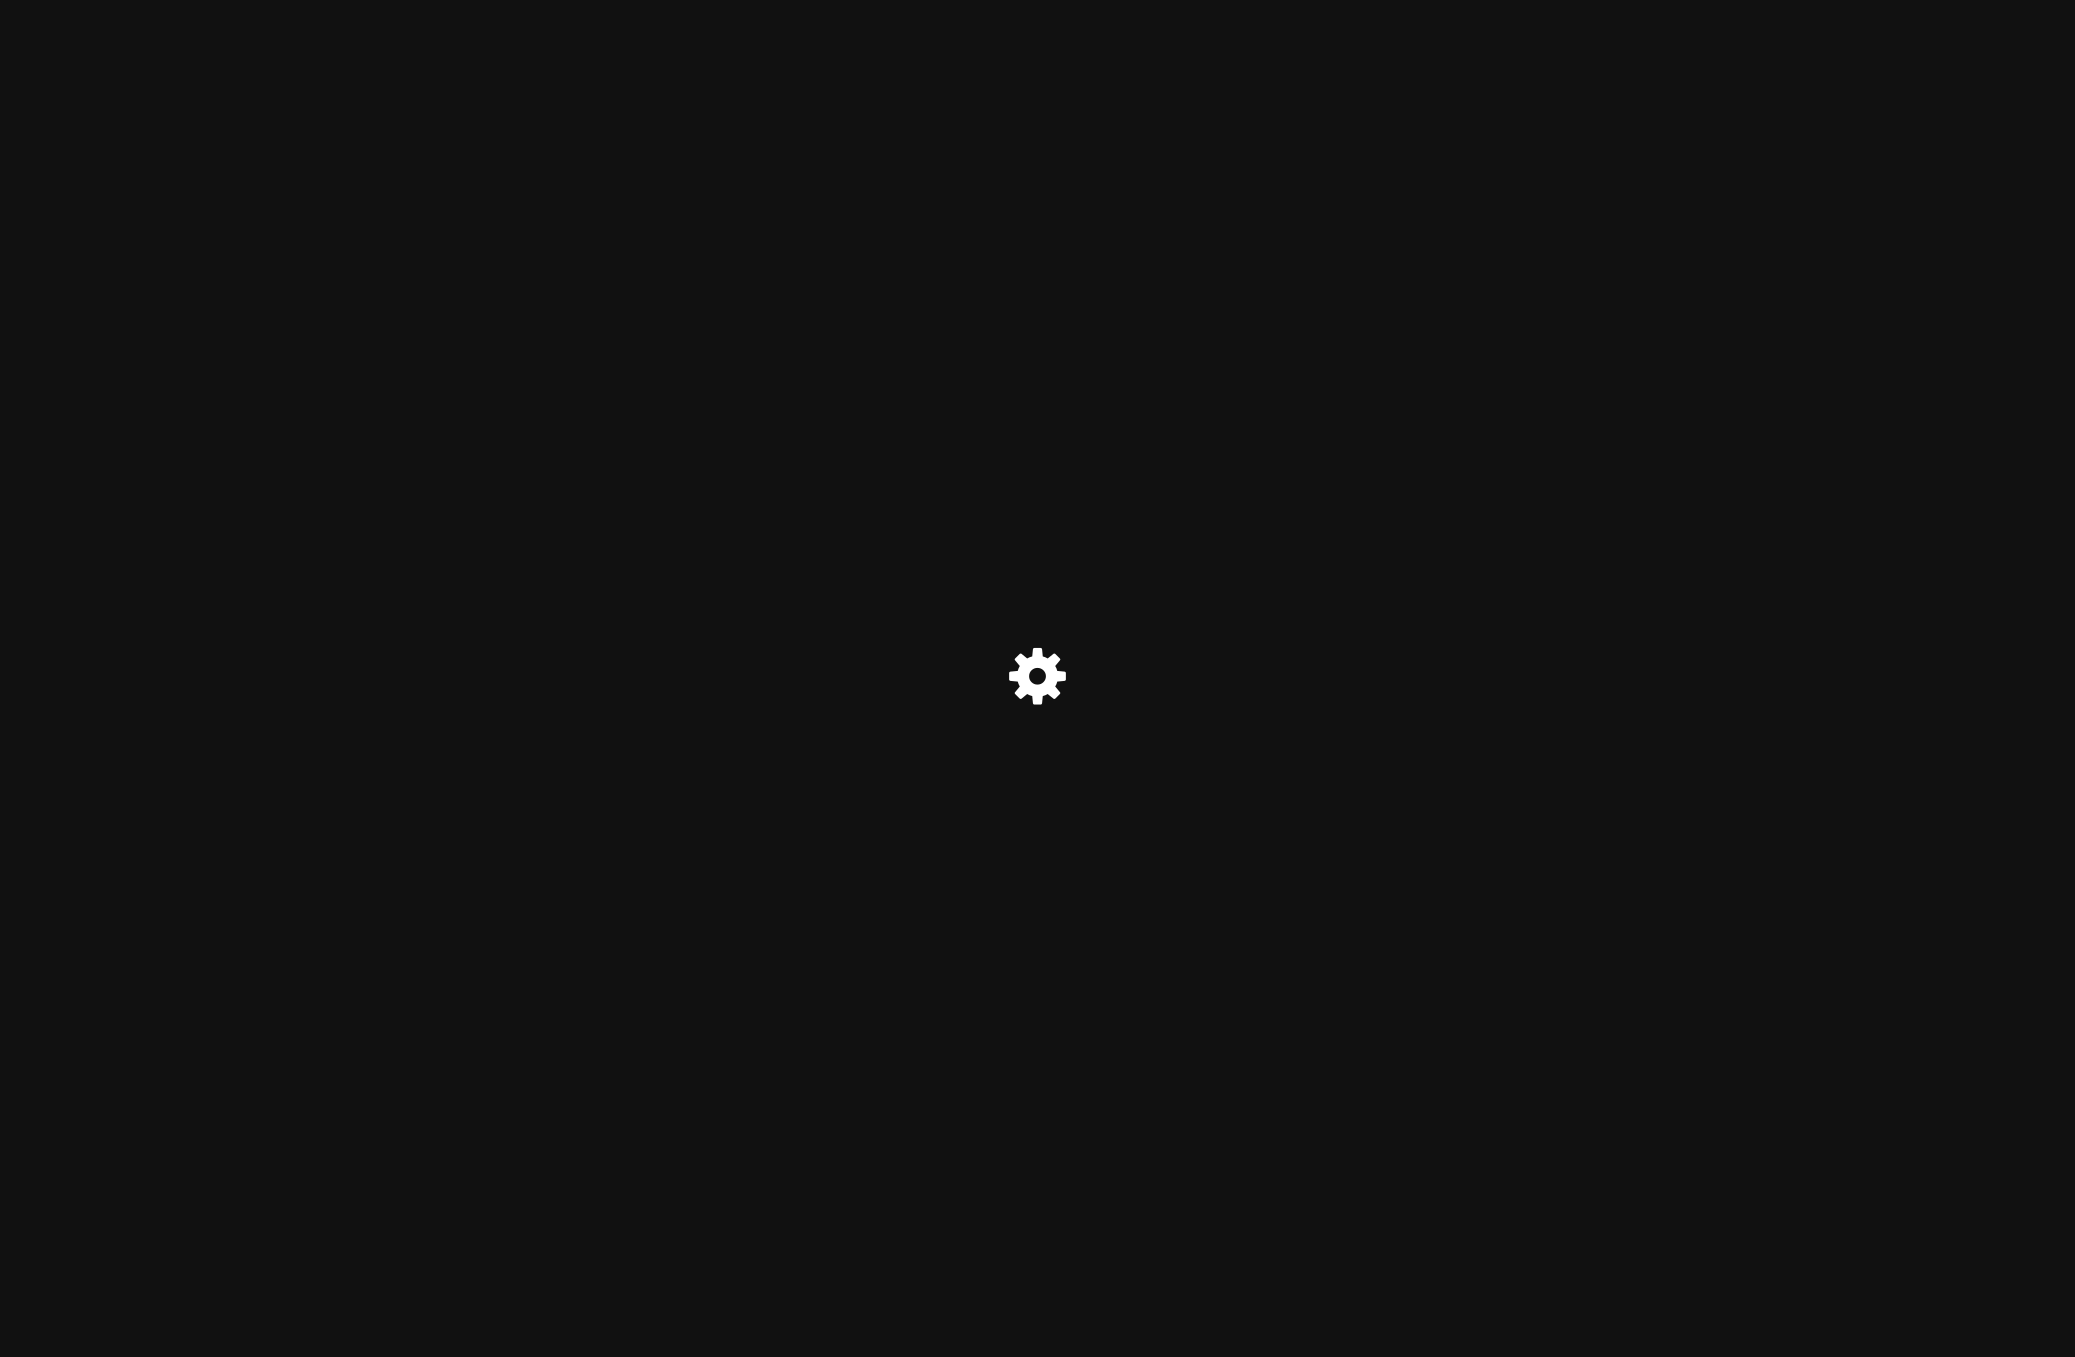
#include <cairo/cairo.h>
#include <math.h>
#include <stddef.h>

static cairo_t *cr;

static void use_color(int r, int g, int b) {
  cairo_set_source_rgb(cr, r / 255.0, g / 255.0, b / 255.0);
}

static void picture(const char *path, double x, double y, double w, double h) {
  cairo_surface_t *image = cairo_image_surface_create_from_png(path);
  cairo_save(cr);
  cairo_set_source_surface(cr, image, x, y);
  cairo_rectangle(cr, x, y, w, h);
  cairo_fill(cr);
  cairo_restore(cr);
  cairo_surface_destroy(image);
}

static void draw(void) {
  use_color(17, 17, 17);
  cairo_paint(cr);
  picture("img_01.png", 1009, 647, 57, 58);
}

int main(void) {
  cairo_surface_t *surface = cairo_image_surface_create(CAIRO_FORMAT_RGB24, 2075, 1357);
  cr = cairo_create(surface);
  cairo_font_options_t *options = cairo_font_options_create();
  cairo_font_options_set_hint_metrics(options, CAIRO_HINT_METRICS_OFF);
  cairo_font_options_set_hint_style(options, CAIRO_HINT_STYLE_NONE);
  cairo_set_font_options(cr, options);
  cairo_set_miter_limit(cr, 4);
  draw();
  cairo_surface_write_to_png(surface, "out.png");
  cairo_font_options_destroy(options);
  cairo_destroy(cr);
  cairo_surface_destroy(surface);
  return 0;
}
